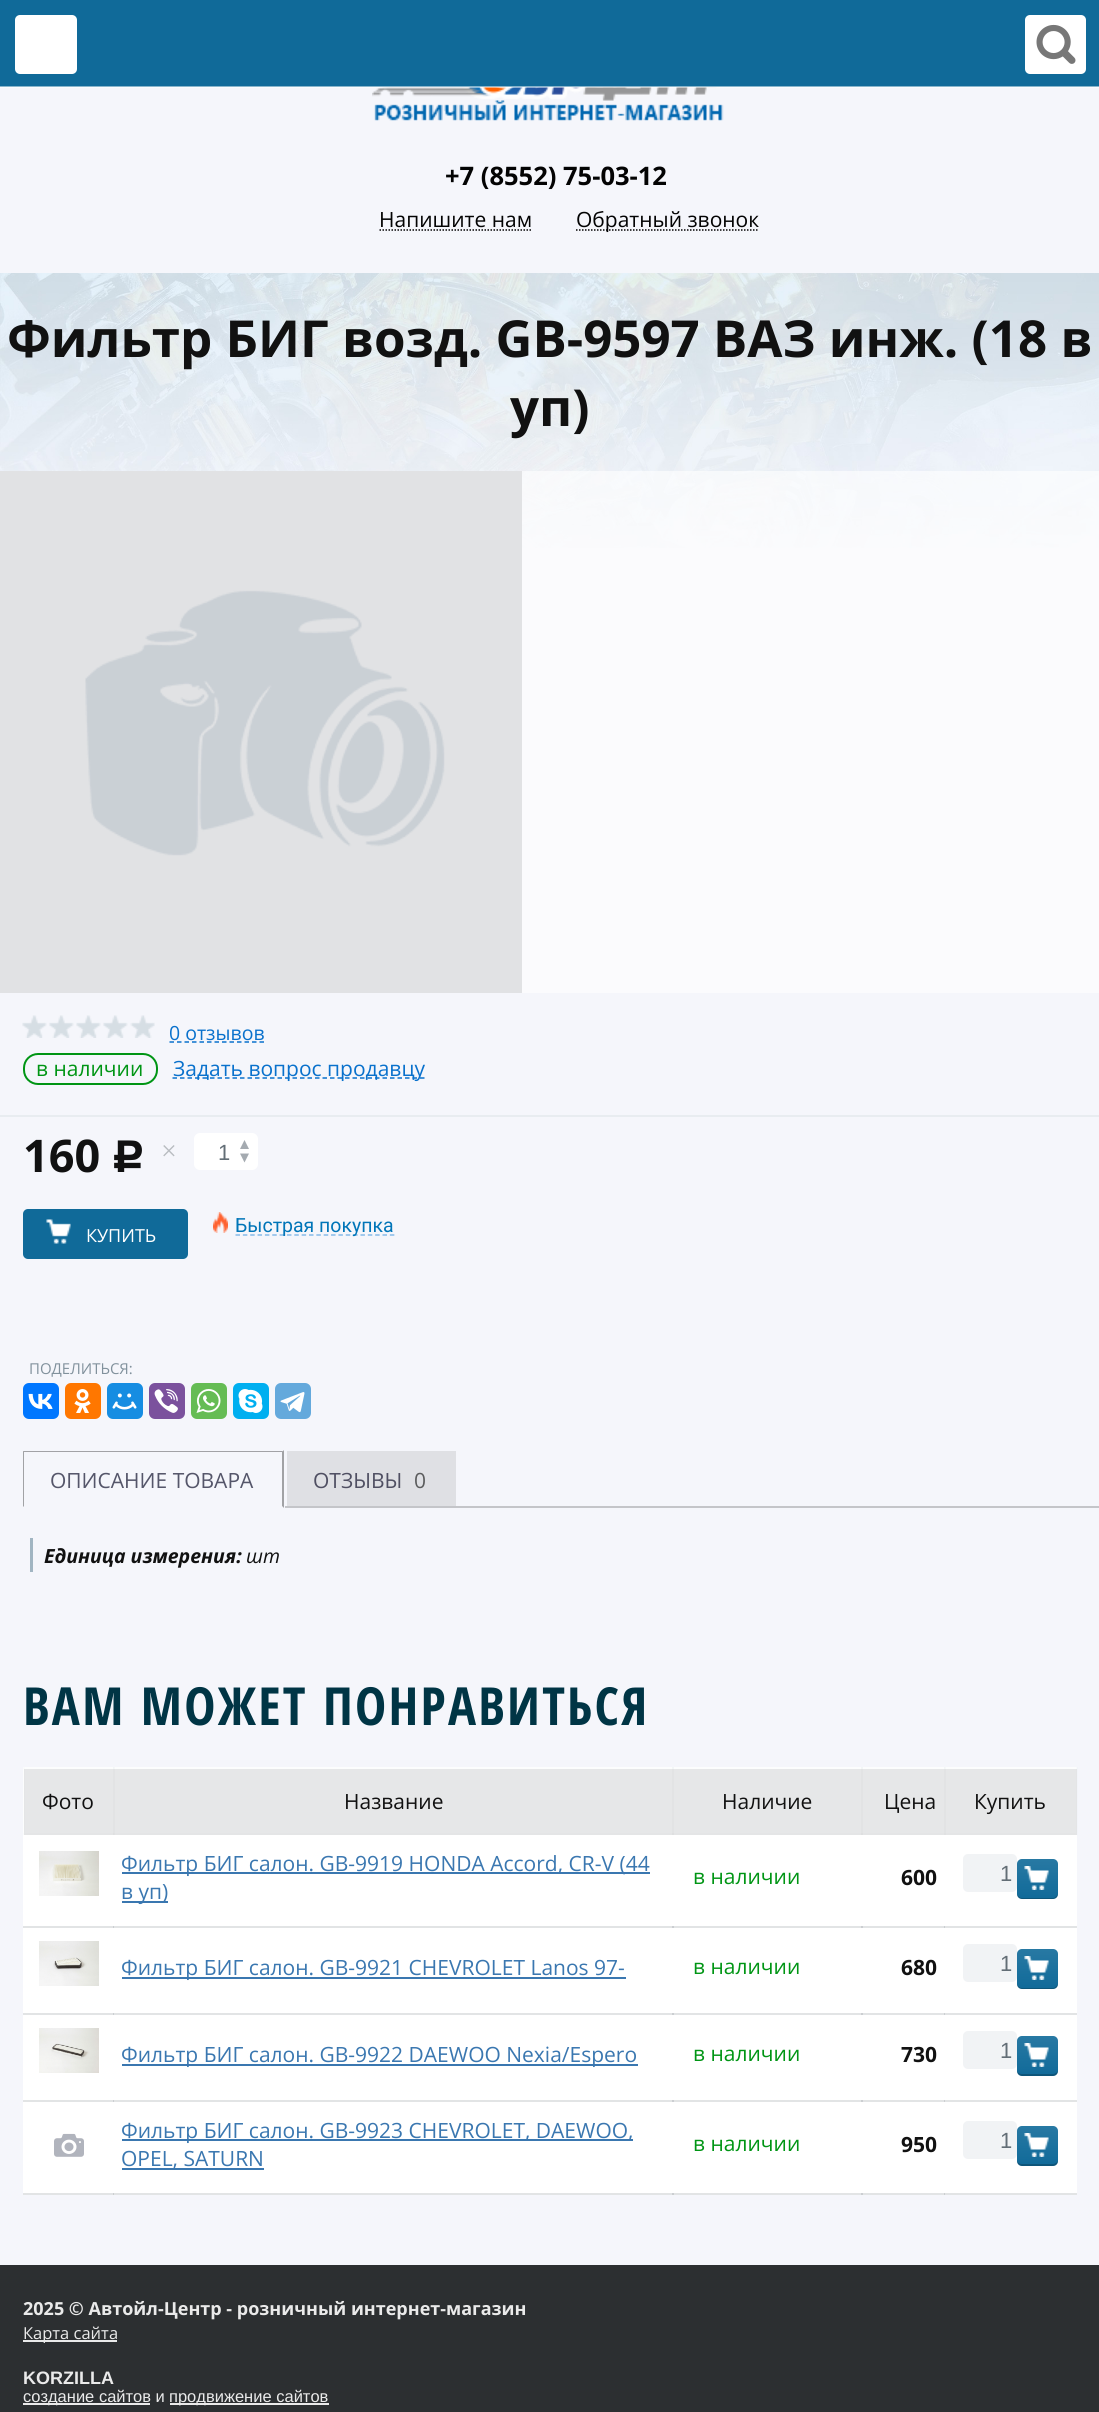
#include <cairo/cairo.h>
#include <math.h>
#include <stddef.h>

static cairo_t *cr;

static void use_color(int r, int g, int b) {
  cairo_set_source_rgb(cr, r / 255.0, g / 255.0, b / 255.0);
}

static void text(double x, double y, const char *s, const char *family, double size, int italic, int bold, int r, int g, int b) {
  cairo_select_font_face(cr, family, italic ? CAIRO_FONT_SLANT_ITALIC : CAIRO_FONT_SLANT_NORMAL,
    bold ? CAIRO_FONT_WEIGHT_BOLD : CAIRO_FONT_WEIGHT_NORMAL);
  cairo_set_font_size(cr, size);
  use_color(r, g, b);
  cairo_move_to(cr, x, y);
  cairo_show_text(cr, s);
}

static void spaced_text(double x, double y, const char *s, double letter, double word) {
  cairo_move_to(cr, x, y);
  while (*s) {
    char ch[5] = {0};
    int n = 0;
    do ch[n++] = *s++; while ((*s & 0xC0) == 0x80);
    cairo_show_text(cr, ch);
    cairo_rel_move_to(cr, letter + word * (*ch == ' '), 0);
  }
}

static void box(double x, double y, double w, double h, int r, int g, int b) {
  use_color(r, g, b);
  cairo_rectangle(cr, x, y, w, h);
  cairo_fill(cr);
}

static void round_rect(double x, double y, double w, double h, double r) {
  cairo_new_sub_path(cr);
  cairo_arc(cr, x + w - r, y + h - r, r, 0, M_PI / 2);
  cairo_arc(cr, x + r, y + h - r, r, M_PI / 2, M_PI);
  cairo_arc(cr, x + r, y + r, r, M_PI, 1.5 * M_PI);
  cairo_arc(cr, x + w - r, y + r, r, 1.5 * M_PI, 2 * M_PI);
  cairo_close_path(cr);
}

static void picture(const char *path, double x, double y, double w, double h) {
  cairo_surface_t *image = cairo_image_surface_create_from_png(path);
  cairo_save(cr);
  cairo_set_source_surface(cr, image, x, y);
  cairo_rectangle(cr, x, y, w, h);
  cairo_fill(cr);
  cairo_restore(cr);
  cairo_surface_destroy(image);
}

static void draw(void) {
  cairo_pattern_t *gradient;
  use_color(245, 246, 251);
  cairo_paint(cr);
  box(1077, 1767, 1, 68, 242, 244, 249);
  box(0, 0, 1099, 87, 16, 106, 153);
  picture("img_02.png", 372, 87, 352, 34);
  cairo_set_source_rgba(cr, 1, 1, 1, 0.5);
  cairo_rectangle(cr, 0, 86, 1099, 2);
  cairo_fill(cr);
  use_color(255, 255, 255);
  round_rect(15, 15, 62, 59, 5);
  cairo_fill(cr);
  round_rect(1025, 15, 61, 59, 5);
  cairo_fill(cr);
  picture("img_01.png", 1036, 24, 40, 40);
  cairo_new_path(cr);
  cairo_move_to(cr, 379.5, 230);
  cairo_line_to(cr, 532.5, 230);
  use_color(3, 3, 3);
  cairo_set_line_width(cr, 1.5);
  cairo_set_dash(cr, (double[]){1.5, 1.5}, 2, 0);
  cairo_stroke(cr);
  cairo_new_path(cr);
  cairo_move_to(cr, 576, 230);
  cairo_line_to(cr, 759, 230);
  cairo_stroke(cr);
  picture("img_03.png", 0, 273, 1099, 275);
  cairo_set_source_rgba(cr, 1, 1, 1, 0.6);
  cairo_rectangle(cr, 522, 471, 577, 522);
  cairo_fill(cr);
  box(0, 471, 522, 522, 250, 250, 251);
  picture("img_04.png", 0, 471, 522, 522);
  picture("img_05.png", 22, 1015, 133, 23);
  cairo_new_path(cr);
  cairo_move_to(cr, 169.5, 1042);
  cairo_line_to(cr, 264, 1042);
  use_color(9, 113, 204);
  cairo_set_dash(cr, (double[]){4.5, 3}, 2, 0);
  cairo_stroke(cr);
  round_rect(24, 1054, 133, 30, 14);
  use_color(0, 149, 20);
  cairo_set_line_width(cr, 2);
  cairo_set_dash(cr, NULL, 0, 0);
  cairo_stroke(cr);
  cairo_new_path(cr);
  cairo_move_to(cr, 172.5, 1078);
  cairo_line_to(cr, 424.5, 1078);
  use_color(9, 113, 204);
  cairo_set_line_width(cr, 1.5);
  cairo_set_dash(cr, (double[]){4.5, 3}, 2, 0);
  cairo_stroke(cr);
  box(0, 1115, 1099, 2, 232, 236, 240);
  use_color(255, 255, 255);
  round_rect(194, 1133, 64, 37, 6);
  cairo_fill(cr);
  use_color(164, 170, 176);
  cairo_new_path(cr);
  cairo_move_to(cr, 249, 1149);
  cairo_line_to(cr, 240, 1149);
  cairo_line_to(cr, 244.5, 1140);
  cairo_close_path(cr);
  cairo_move_to(cr, 240, 1153.5);
  cairo_line_to(cr, 249, 1153.5);
  cairo_line_to(cr, 244.5, 1162.5);
  cairo_close_path(cr);
  cairo_fill(cr);
  use_color(16, 106, 153);
  round_rect(23, 1209, 165, 50, 5);
  cairo_fill(cr);
  picture("img_06.png", 46, 1219, 25, 25);
  picture("img_07.png", 213, 1212, 15, 21);
  cairo_new_path(cr);
  cairo_move_to(cr, 235.5, 1235);
  cairo_line_to(cr, 394.5, 1235);
  use_color(133, 186, 233);
  cairo_set_dash(cr, (double[]){4.5, 2.85}, 2, 0);
  cairo_stroke(cr);
  use_color(0, 119, 255);
  round_rect(23, 1383, 36, 36, 6);
  cairo_fill(cr);
  picture("img_08.png", 28, 1393, 25, 16);
  use_color(255, 119, 0);
  round_rect(65, 1383, 36, 36, 6);
  cairo_fill(cr);
  picture("img_09.png", 74, 1389, 17, 24);
  use_color(22, 141, 226);
  round_rect(107, 1383, 36, 36, 6);
  cairo_fill(cr);
  picture("img_10.png", 112, 1393, 25, 17);
  use_color(123, 81, 157);
  round_rect(149, 1383, 36, 36, 6);
  cairo_fill(cr);
  picture("img_11.png", 154, 1389, 24, 24);
  use_color(101, 188, 84);
  round_rect(191, 1383, 36, 36, 6);
  cairo_fill(cr);
  picture("img_12.png", 196, 1389, 25, 24);
  use_color(0, 175, 240);
  round_rect(233, 1383, 36, 36, 6);
  cairo_fill(cr);
  picture("img_13.png", 238, 1389, 25, 24);
  use_color(100, 169, 220);
  round_rect(275, 1383, 36, 36, 6);
  cairo_fill(cr);
  picture("img_14.png", 280, 1392, 25, 21);
  cairo_save(cr);
  cairo_rectangle(cr, 23, 1451, 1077, 57);
  cairo_clip(cr);
  use_color(162, 162, 166);
  cairo_new_path(cr);
  cairo_move_to(cr, 22, 1450);
  cairo_line_to(cr, 284, 1450);
  cairo_line_to(cr, 282, 1452);
  cairo_line_to(cr, 24, 1452);
  cairo_close_path(cr);
  cairo_fill(cr);
  cairo_restore(cr);
  cairo_set_source_rgba(cr, 0, 0, 0, 0.34);
  cairo_new_path(cr);
  cairo_move_to(cr, 284, 1450);
  cairo_line_to(cr, 284, 1508);
  cairo_line_to(cr, 282, 1506);
  cairo_line_to(cr, 282, 1452);
  cairo_close_path(cr);
  cairo_fill(cr);
  cairo_save(cr);
  cairo_rectangle(cr, 23, 1451, 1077, 57);
  cairo_clip(cr);
  cairo_new_path(cr);
  cairo_move_to(cr, 22, 1508);
  cairo_line_to(cr, 22, 1450);
  cairo_line_to(cr, 24, 1452);
  cairo_line_to(cr, 24, 1506);
  cairo_close_path(cr);
  cairo_fill(cr);
  cairo_restore(cr);
  box(285, 1506, 814, 2, 196, 197, 201);
  box(287, 1451, 169, 55, 223, 224, 228);
  box(30, 1538, 3, 34, 161, 181, 194);
  box(23, 1835, 1054, 358, 255, 255, 255);
  box(23, 1767, 1, 68, 252, 253, 253);
  box(23, 1833, 2, 2, 249, 251, 251);
  box(23, 1767, 1054, 2, 252, 253, 253);
  box(23, 1767, 2, 2, 249, 251, 251);
  box(113, 1767, 2, 2, 246, 249, 249);
  box(113, 1767, 1, 2, 243, 247, 247);
  box(672, 1767, 2, 2, 243, 247, 247);
  box(861, 1767, 2, 2, 243, 247, 247);
  box(23, 1926, 1054, 2, 226, 228, 229);
  box(113, 1926, 1, 2, 203, 206, 209);
  box(672, 1926, 2, 2, 203, 206, 209);
  box(861, 1926, 2, 2, 203, 206, 209);
  box(23, 2013, 1054, 2, 226, 228, 229);
  box(113, 2013, 1, 2, 203, 206, 209);
  box(672, 2013, 2, 2, 203, 206, 209);
  box(861, 2013, 2, 2, 203, 206, 209);
  box(23, 2100, 1054, 2, 226, 228, 229);
  box(113, 2100, 1, 2, 203, 206, 209);
  box(672, 2100, 2, 2, 203, 206, 209);
  box(861, 2100, 2, 2, 203, 206, 209);
  box(23, 2193, 1054, 2, 226, 228, 229);
  box(113, 2193, 1, 2, 203, 206, 209);
  box(672, 2193, 2, 2, 203, 206, 209);
  box(861, 2193, 2, 2, 203, 206, 209);
  box(25, 1769, 88, 64, 230, 231, 232);
  box(24, 1769, 1, 66, 228, 229, 230);
  box(24, 1833, 90, 2, 228, 229, 230);
  box(113, 1769, 2, 66, 226, 227, 228);
  box(113, 1833, 1, 2, 222, 223, 224);
  box(115, 1769, 557, 64, 230, 231, 232);
  box(114, 1833, 747, 2, 228, 229, 230);
  box(114, 1833, 1, 2, 224, 225, 226);
  box(672, 1769, 2, 66, 226, 227, 228);
  box(672, 1833, 2, 2, 222, 223, 224);
  box(674, 1769, 187, 64, 230, 231, 232);
  box(863, 1769, 81, 64, 230, 231, 232);
  box(861, 1769, 2, 66, 226, 227, 228);
  box(861, 1833, 84, 2, 228, 229, 230);
  box(861, 1833, 2, 2, 222, 223, 224);
  box(944, 1769, 2, 66, 226, 227, 228);
  box(946, 1769, 130, 64, 230, 231, 232);
  box(1076, 1769, 1, 66, 228, 229, 230);
  box(944, 1767, 2, 2, 246, 249, 249);
  box(944, 1767, 1, 2, 243, 247, 247);
  box(1076, 1767, 1, 2, 249, 251, 251);
  box(944, 1833, 133, 2, 228, 229, 230);
  box(944, 1833, 2, 2, 224, 225, 226);
  picture("img_15.png", 39, 1851, 60, 45);
  box(122, 1872, 528, 2, 58, 119, 176);
  box(122, 1901, 46, 2, 58, 119, 176);
  box(944, 1926, 1, 2, 203, 206, 209);
  use_color(241, 243, 245);
  round_rect(963, 1854, 54, 38, 5);
  cairo_fill(cr);
  use_color(16, 106, 153);
  round_rect(1017, 1859, 41, 40, 5);
  cairo_fill(cr);
  picture("img_16.png", 1024, 1866, 25, 24);
  gradient = cairo_pattern_create_linear(1037, 1859, 1037, 1899);
  cairo_pattern_add_color_stop_rgba(gradient, 0, 1, 1, 1, 0.1);
  cairo_pattern_add_color_stop_rgba(gradient, 1, 1, 1, 1, 0);
  cairo_set_source(cr, gradient);
  cairo_pattern_destroy(gradient);
  round_rect(1017, 1859, 41, 40, 5);
  cairo_fill(cr);
  cairo_set_source_rgba(cr, 0, 0, 0, 0.2);
  cairo_new_path(cr);
  cairo_move_to(cr, 1017, 1893);
  cairo_curve_to(cr, 1017, 1900, 1022, 1899, 1027, 1899);
  cairo_line_to(cr, 1048, 1899);
  cairo_curve_to(cr, 1053, 1899, 1058, 1900, 1058, 1893);
  cairo_curve_to(cr, 1058, 1895, 1055, 1898, 1053, 1898);
  cairo_line_to(cr, 1022, 1898);
  cairo_curve_to(cr, 1019, 1898, 1017, 1895, 1017, 1893);
  cairo_close_path(cr);
  cairo_fill(cr);
  picture("img_17.png", 39, 1941, 60, 45);
  box(122, 1977, 504, 2, 58, 119, 176);
  box(944, 2013, 1, 2, 203, 206, 209);
  use_color(241, 243, 245);
  round_rect(963, 1944, 54, 38, 5);
  cairo_fill(cr);
  use_color(16, 106, 153);
  round_rect(1017, 1949, 41, 40, 5);
  cairo_fill(cr);
  picture("img_16.png", 1024, 1956, 25, 24);
  gradient = cairo_pattern_create_linear(1037, 1949, 1037, 1989);
  cairo_pattern_add_color_stop_rgba(gradient, 0, 1, 1, 1, 0.1);
  cairo_pattern_add_color_stop_rgba(gradient, 1, 1, 1, 1, 0);
  cairo_set_source(cr, gradient);
  cairo_pattern_destroy(gradient);
  round_rect(1017, 1949, 41, 40, 5);
  cairo_fill(cr);
  cairo_set_source_rgba(cr, 0, 0, 0, 0.2);
  cairo_new_path(cr);
  cairo_move_to(cr, 1017, 1983);
  cairo_curve_to(cr, 1017, 1990, 1022, 1989, 1027, 1989);
  cairo_line_to(cr, 1048, 1989);
  cairo_curve_to(cr, 1053, 1989, 1058, 1990, 1058, 1983);
  cairo_curve_to(cr, 1058, 1985, 1055, 1988, 1053, 1988);
  cairo_line_to(cr, 1022, 1988);
  cairo_curve_to(cr, 1019, 1988, 1017, 1985, 1017, 1983);
  cairo_close_path(cr);
  cairo_fill(cr);
  picture("img_18.png", 39, 2028, 60, 45);
  box(122, 2064, 516, 2, 58, 119, 176);
  box(944, 2100, 1, 2, 203, 206, 209);
  use_color(241, 243, 245);
  round_rect(963, 2031, 54, 38, 5);
  cairo_fill(cr);
  use_color(16, 106, 153);
  round_rect(1017, 2036, 41, 40, 5);
  cairo_fill(cr);
  picture("img_16.png", 1024, 2043, 25, 24);
  gradient = cairo_pattern_create_linear(1037, 2036, 1037, 2076);
  cairo_pattern_add_color_stop_rgba(gradient, 0, 1, 1, 1, 0.1);
  cairo_pattern_add_color_stop_rgba(gradient, 1, 1, 1, 1, 0);
  cairo_set_source(cr, gradient);
  cairo_pattern_destroy(gradient);
  round_rect(1017, 2036, 41, 40, 5);
  cairo_fill(cr);
  cairo_set_source_rgba(cr, 0, 0, 0, 0.2);
  cairo_new_path(cr);
  cairo_move_to(cr, 1017, 2070);
  cairo_curve_to(cr, 1017, 2077, 1022, 2076, 1027, 2076);
  cairo_line_to(cr, 1048, 2076);
  cairo_curve_to(cr, 1053, 2076, 1058, 2077, 1058, 2070);
  cairo_curve_to(cr, 1058, 2072, 1055, 2074, 1053, 2074);
  cairo_line_to(cr, 1022, 2074);
  cairo_curve_to(cr, 1019, 2074, 1017, 2072, 1017, 2070);
  cairo_close_path(cr);
  cairo_fill(cr);
  picture("img_19.png", 54, 2133, 30, 24);
  box(122, 2139, 511, 2, 58, 119, 176);
  box(122, 2168, 142, 2, 58, 119, 176);
  box(944, 2193, 1, 2, 203, 206, 209);
  use_color(241, 243, 245);
  round_rect(963, 2121, 54, 38, 5);
  cairo_fill(cr);
  use_color(16, 106, 153);
  round_rect(1017, 2126, 41, 40, 5);
  cairo_fill(cr);
  picture("img_16.png", 1024, 2133, 25, 24);
  gradient = cairo_pattern_create_linear(1037, 2126, 1037, 2166);
  cairo_pattern_add_color_stop_rgba(gradient, 0, 1, 1, 1, 0.1);
  cairo_pattern_add_color_stop_rgba(gradient, 1, 1, 1, 1, 0);
  cairo_set_source(cr, gradient);
  cairo_pattern_destroy(gradient);
  round_rect(1017, 2126, 41, 40, 5);
  cairo_fill(cr);
  cairo_set_source_rgba(cr, 0, 0, 0, 0.2);
  cairo_new_path(cr);
  cairo_move_to(cr, 1017, 2160);
  cairo_curve_to(cr, 1017, 2167, 1022, 2166, 1027, 2166);
  cairo_line_to(cr, 1048, 2166);
  cairo_curve_to(cr, 1053, 2166, 1058, 2167, 1058, 2160);
  cairo_curve_to(cr, 1058, 2162, 1055, 2164, 1053, 2164);
  cairo_line_to(cr, 1022, 2164);
  cairo_curve_to(cr, 1019, 2164, 1017, 2162, 1017, 2160);
  cairo_close_path(cr);
  cairo_fill(cr);
  box(0, 2265, 1099, 147, 44, 47, 49);
  box(23, 2340, 94, 2, 234, 234, 234);
  box(23, 2403, 127, 2, 234, 234, 234);
  box(170, 2403, 159, 2, 234, 234, 234);
  text(445, 185, "+7 (8552) 75-03-12", "Open Sans", 25.5, 0, 1, 3, 3, 3);
  text(379, 227, "Напишите нам", "Open Sans", 21, 0, 0, 3, 3, 3);
  text(576, 227, "Обратный звонок", "Open Sans", 21, 0, 0, 3, 3, 3);
  text(7, 357, "Фильтр БИГ возд. GB-9597 ВАЗ инж. (18 в", "Open Sans", 51, 0, 1, 17, 17, 17);
  text(510, 426, "уп)", "Open Sans", 51, 0, 1, 17, 17, 17);
  text(169, 1040, "0 отзывов", "Open Sans", 19.5, 0, 0, 9, 113, 204);
  text(36, 1076, "в наличии", "Open Sans", 21, 0, 0, 0, 149, 20);
  text(173, 1076, "Задать вопрос продавцу", "Open Sans", 21, 0, 0, 9, 113, 204);
  text(23, 1172, "160", "Open Sans", 45, 0, 1, 17, 17, 17);
  text(111, 1172, "c", "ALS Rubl", 45, 0, 0, 17, 17, 17);
  text(161, 1160, "×", "Liberation Serif", 28, 0, 0, 184, 188, 192);
  text(218, 1160, "1", "Liberation Sans", 22, 0, 0, 99, 110, 118);
  text(86, 1242, "КУПИТЬ", "Open Sans", 18, 0, 0, 255, 255, 255);
  text(235, 1232, "Быстрая покупка", "Roboto", 19.5, 0, 0, 0, 117, 184);
  text(29, 1374, "ПОДЕЛИТЬСЯ:", "Open Sans", 15, 0, 0, 129, 145, 156);
  text(50, 1488, "ОПИСАНИЕ ТОВАРА", "Open Sans", 21, 0, 0, 85, 86, 106);
  text(313, 1488, "ОТЗЫВЫ", "Open Sans", 21, 0, 0, 79, 79, 98);
  text(414, 1488, "0", "Open Sans", 21, 0, 0, 91, 92, 93);
  text(44, 1563, "Единица измерения:", "Open Sans", 19.5, 1, 1, 17, 17, 17);
  text(246, 1563, "шт", "Open Sans", 19.5, 1, 0, 17, 17, 17);
  cairo_select_font_face(cr, "Open Sans Condensed", CAIRO_FONT_SLANT_NORMAL, CAIRO_FONT_WEIGHT_BOLD);
  cairo_set_font_size(cr, 52.5);
  use_color(0, 53, 69);
  spaced_text(23, 1725, "ВАМ МОЖЕТ ПОНРАВИТЬСЯ", 2.25, 0);
  text(42, 1809, "Фото", "Open Sans", 21, 0, 0, 17, 17, 17);
  text(344, 1809, "Название", "Open Sans", 21, 0, 0, 17, 17, 17);
  text(722, 1809, "Наличие", "Open Sans", 21, 0, 0, 17, 17, 17);
  text(884, 1809, "Цена", "Open Sans", 21, 0, 0, 17, 17, 17);
  text(974, 1809, "Купить", "Open Sans", 21, 0, 0, 17, 17, 17);
  text(121, 1871, "Фильтр БИГ салон. GB-9919 HONDA Accord, CR-V (44", "Open Sans", 21, 0, 0, 58, 119, 176);
  text(121, 1899, "в уп)", "Open Sans", 21, 0, 0, 58, 119, 176);
  text(693, 1884, "в наличии", "Open Sans", 21, 0, 0, 0, 149, 20);
  text(901, 1885, "600", "Open Sans", 21, 0, 1, 17, 17, 17);
  text(1000, 1881, "1", "Liberation Sans", 22, 0, 0, 99, 110, 118);
  text(121, 1975, "Фильтр БИГ салон. GB-9921 CHEVROLET Lanos 97-", "Open Sans", 21, 0, 0, 58, 119, 176);
  text(693, 1974, "в наличии", "Open Sans", 21, 0, 0, 0, 149, 20);
  text(901, 1975, "680", "Open Sans", 21, 0, 1, 17, 17, 17);
  text(1000, 1971, "1", "Liberation Sans", 22, 0, 0, 99, 110, 118);
  text(121, 2062, "Фильтр БИГ салон. GB-9922 DAEWOO Nexia/Espero", "Open Sans", 21, 0, 0, 58, 119, 176);
  text(693, 2061, "в наличии", "Open Sans", 21, 0, 0, 0, 149, 20);
  text(901, 2062, "730", "Open Sans", 21, 0, 1, 17, 17, 17);
  text(1000, 2058, "1", "Liberation Sans", 22, 0, 0, 99, 110, 118);
  text(121, 2138, "Фильтр БИГ салон. GB-9923 CHEVROLET, DAEWOO,", "Open Sans", 21, 0, 0, 58, 119, 176);
  text(121, 2166, "OPEL, SATURN", "Open Sans", 21, 0, 0, 58, 119, 176);
  text(693, 2151, "в наличии", "Open Sans", 21, 0, 0, 0, 149, 20);
  text(901, 2152, "950", "Open Sans", 21, 0, 1, 17, 17, 17);
  text(1000, 2148, "1", "Liberation Sans", 22, 0, 0, 99, 110, 118);
  text(23, 2315, "2025 © Автойл-Центр - розничный интернет-магазин", "Open Sans", 18, 0, 1, 234, 234, 234);
  text(23, 2339, "Карта сайта", "Open Sans", 16.5, 0, 0, 234, 234, 234);
  text(23, 2384, "KORZILLA", "Liberation Sans", 18, 0, 1, 234, 234, 234);
  text(23, 2402, "создание сайтов и", "Liberation Sans", 16.5, 0, 0, 234, 234, 234);
  text(169, 2402, "продвижение сайтов", "Liberation Sans", 16.5, 0, 0, 234, 234, 234);
}

int main(void) {
  cairo_surface_t *surface = cairo_image_surface_create(CAIRO_FORMAT_RGB24, 1099, 2412);
  cr = cairo_create(surface);
  cairo_font_options_t *options = cairo_font_options_create();
  cairo_font_options_set_hint_metrics(options, CAIRO_HINT_METRICS_OFF);
  cairo_font_options_set_hint_style(options, CAIRO_HINT_STYLE_NONE);
  cairo_set_font_options(cr, options);
  cairo_set_miter_limit(cr, 4);
  draw();
  cairo_surface_write_to_png(surface, "out.png");
  cairo_font_options_destroy(options);
  cairo_destroy(cr);
  cairo_surface_destroy(surface);
  return 0;
}
